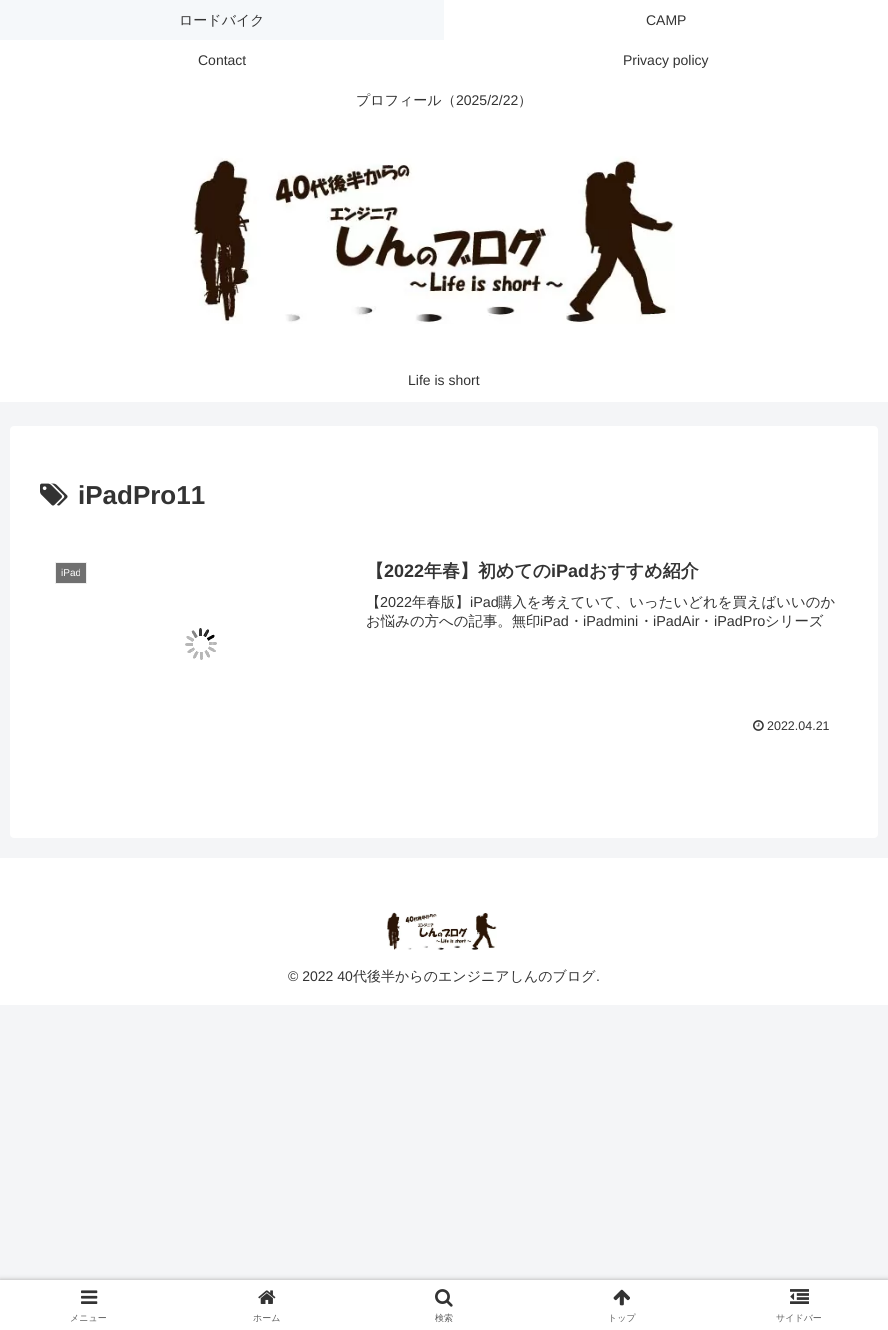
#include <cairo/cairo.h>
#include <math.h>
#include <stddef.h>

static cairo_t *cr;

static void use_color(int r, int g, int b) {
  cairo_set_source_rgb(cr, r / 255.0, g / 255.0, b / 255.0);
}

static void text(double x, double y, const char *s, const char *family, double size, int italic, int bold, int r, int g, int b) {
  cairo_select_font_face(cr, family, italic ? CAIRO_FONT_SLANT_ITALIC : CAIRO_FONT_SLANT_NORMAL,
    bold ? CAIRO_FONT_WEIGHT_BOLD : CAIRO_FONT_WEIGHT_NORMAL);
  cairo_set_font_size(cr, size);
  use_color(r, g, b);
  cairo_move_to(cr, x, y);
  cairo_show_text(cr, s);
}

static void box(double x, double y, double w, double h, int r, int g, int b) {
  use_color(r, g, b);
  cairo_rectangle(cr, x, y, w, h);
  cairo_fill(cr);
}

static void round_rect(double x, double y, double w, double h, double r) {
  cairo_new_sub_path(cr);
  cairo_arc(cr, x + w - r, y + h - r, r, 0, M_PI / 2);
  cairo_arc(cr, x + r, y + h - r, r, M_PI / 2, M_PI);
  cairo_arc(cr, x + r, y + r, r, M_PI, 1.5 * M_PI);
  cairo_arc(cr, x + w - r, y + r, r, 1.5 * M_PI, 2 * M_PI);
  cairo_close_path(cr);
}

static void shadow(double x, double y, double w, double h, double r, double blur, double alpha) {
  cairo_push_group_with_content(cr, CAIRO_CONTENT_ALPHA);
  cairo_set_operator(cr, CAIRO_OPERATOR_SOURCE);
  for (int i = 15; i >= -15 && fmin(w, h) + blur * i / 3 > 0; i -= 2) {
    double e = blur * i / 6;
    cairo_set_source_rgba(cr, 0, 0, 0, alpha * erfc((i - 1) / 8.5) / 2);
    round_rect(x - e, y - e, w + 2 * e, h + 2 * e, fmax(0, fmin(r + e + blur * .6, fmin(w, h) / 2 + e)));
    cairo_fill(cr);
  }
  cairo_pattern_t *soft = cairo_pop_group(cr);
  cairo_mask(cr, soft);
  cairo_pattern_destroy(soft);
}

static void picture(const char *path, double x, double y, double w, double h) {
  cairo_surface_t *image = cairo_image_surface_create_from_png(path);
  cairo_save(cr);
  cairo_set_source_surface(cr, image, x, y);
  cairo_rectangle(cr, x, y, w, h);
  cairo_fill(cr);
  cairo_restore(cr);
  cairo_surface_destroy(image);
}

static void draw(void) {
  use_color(244, 245, 247);
  cairo_paint(cr);
  box(0, 0, 888, 402, 255, 255, 255);
  box(0, 0, 444, 40, 245, 248, 250);
  picture("img_01.png", 192, 156, 483, 168);
  use_color(255, 255, 255);
  round_rect(10, 426, 868, 412, 4);
  cairo_fill(cr);
  picture("img_02.png", 40, 483, 28, 23);
  use_color(112, 112, 112);
  cairo_rectangle(cr, 55.5, 562.5, 31, 21);
  cairo_fill_preserve(cr);
  use_color(238, 238, 238);
  cairo_set_line_width(cr, 1);
  cairo_stroke(cr);
  picture("img_03.png", 185, 628, 32, 32);
  picture("img_04.png", 753, 720, 11, 11);
  box(0, 858, 888, 147, 255, 255, 255);
  picture("img_05.png", 387, 912, 110, 38);
  use_color(169, 169, 169);
  shadow(0, 1280, 888, 50, 0, 2.5, 1);
  box(0, 1280, 888, 50, 255, 255, 255);
  picture("img_06.png", 81, 1290, 17, 14);
  picture("img_07.png", 258, 1290, 18, 14);
  picture("img_08.png", 435, 1289, 18, 18);
  picture("img_09.png", 613, 1289, 17, 17);
  picture("img_10.png", 790, 1289, 19, 15);
  text(179, 25, "ロードバイク", "WenQuanYi Zen Hei Medium", 14, 0, 0, 51, 51, 51);
  text(646, 25, "CAMP", "Liberation Sans", 14, 0, 0, 51, 51, 51);
  text(198, 65, "Contact", "Liberation Sans", 14, 0, 0, 51, 51, 51);
  text(623, 65, "Privacy policy", "Liberation Sans", 14, 0, 0, 51, 51, 51);
  text(356, 105, "プロフィール（", "WenQuanYi Zen Hei Medium", 14, 0, 0, 51, 51, 51);
  text(456, 105, "2025/2/22", "Liberation Sans", 14, 0, 0, 51, 51, 51);
  text(518, 105, "）", "WenQuanYi Zen Hei Medium", 14, 0, 0, 51, 51, 51);
  text(408, 385, "Life is short", "Liberation Sans", 14, 0, 0, 51, 51, 51);
  text(78, 504, "iPadPro11", "Liberation Sans", 26, 0, 1, 51, 51, 51);
  text(61, 576, "iPad", "Liberation Sans", 10, 0, 0, 255, 255, 255);
  text(366, 577, "【", "WenQuanYi Zen Hei", 18, 0, 1, 51, 51, 51);
  text(384, 577, "2022", "Liberation Sans", 18, 0, 1, 51, 51, 51);
  text(424, 577, "年春】初めての", "WenQuanYi Zen Hei", 18, 0, 1, 51, 51, 51);
  text(551, 577, "iPad", "Liberation Sans", 18, 0, 1, 51, 51, 51);
  text(589, 577, "おすすめ紹介", "WenQuanYi Zen Hei", 18, 0, 1, 51, 51, 51);
  text(366, 607, "【", "WenQuanYi Zen Hei Medium", 14.4, 0, 0, 51, 51, 51);
  text(380, 607, "2022", "Liberation Sans", 14.4, 0, 0, 51, 51, 51);
  text(412, 607, "年春版】", "WenQuanYi Zen Hei Medium", 14.4, 0, 0, 51, 51, 51);
  text(470, 607, "iPad", "Liberation Sans", 14.4, 0, 0, 51, 51, 51);
  text(498, 607, "購入を考えていて、いったいどれを買えばいいのか", "WenQuanYi Zen Hei Medium", 14.4, 0, 0, 51, 51, 51);
  text(366, 626, "お悩みの方への記事。無印", "WenQuanYi Zen Hei Medium", 14.4, 0, 0, 51, 51, 51);
  text(540, 626, "iPad", "Liberation Sans", 14.4, 0, 0, 51, 51, 51);
  text(569, 626, "・", "WenQuanYi Zen Hei Medium", 14.4, 0, 0, 51, 51, 51);
  text(583, 626, "iPadmini", "Liberation Sans", 14.4, 0, 0, 51, 51, 51);
  text(639, 626, "・", "WenQuanYi Zen Hei Medium", 14.4, 0, 0, 51, 51, 51);
  text(653, 626, "iPadAir", "Liberation Sans", 14.4, 0, 0, 51, 51, 51);
  text(699, 626, "・", "WenQuanYi Zen Hei Medium", 14.4, 0, 0, 51, 51, 51);
  text(714, 626, "iPadPro", "Liberation Sans", 14.4, 0, 0, 51, 51, 51);
  text(765, 626, "シリーズ", "WenQuanYi Zen Hei Medium", 14.4, 0, 0, 51, 51, 51);
  text(767, 730, "2022.04.21", "Liberation Sans", 12.5, 0, 0, 51, 51, 51);
  text(288, 981, "© 2022 40", "Liberation Sans", 14, 0, 0, 51, 51, 51);
  text(353, 981, "代後半からのエンジニアしんのブログ", "WenQuanYi Zen Hei Medium", 14, 0, 0, 51, 51, 51);
  text(596, 981, ".", "Liberation Sans", 14, 0, 0, 51, 51, 51);
  text(70, 1321, "メニュー", "WenQuanYi Zen Hei Medium", 9, 0, 0, 92, 92, 92);
  text(253, 1321, "ホーム", "WenQuanYi Zen Hei Medium", 9, 0, 0, 92, 92, 92);
  text(435, 1321, "検索", "WenQuanYi Zen Hei Medium", 9, 0, 0, 92, 92, 92);
  text(608, 1321, "トップ", "WenQuanYi Zen Hei Medium", 9, 0, 0, 92, 92, 92);
  text(776, 1321, "サイドバー", "WenQuanYi Zen Hei Medium", 9, 0, 0, 92, 92, 92);
}

int main(void) {
  cairo_surface_t *surface = cairo_image_surface_create(CAIRO_FORMAT_RGB24, 888, 1330);
  cr = cairo_create(surface);
  cairo_font_options_t *options = cairo_font_options_create();
  cairo_font_options_set_hint_metrics(options, CAIRO_HINT_METRICS_OFF);
  cairo_font_options_set_hint_style(options, CAIRO_HINT_STYLE_NONE);
  cairo_set_font_options(cr, options);
  cairo_set_miter_limit(cr, 4);
  draw();
  cairo_surface_write_to_png(surface, "out.png");
  cairo_font_options_destroy(options);
  cairo_destroy(cr);
  cairo_surface_destroy(surface);
  return 0;
}
